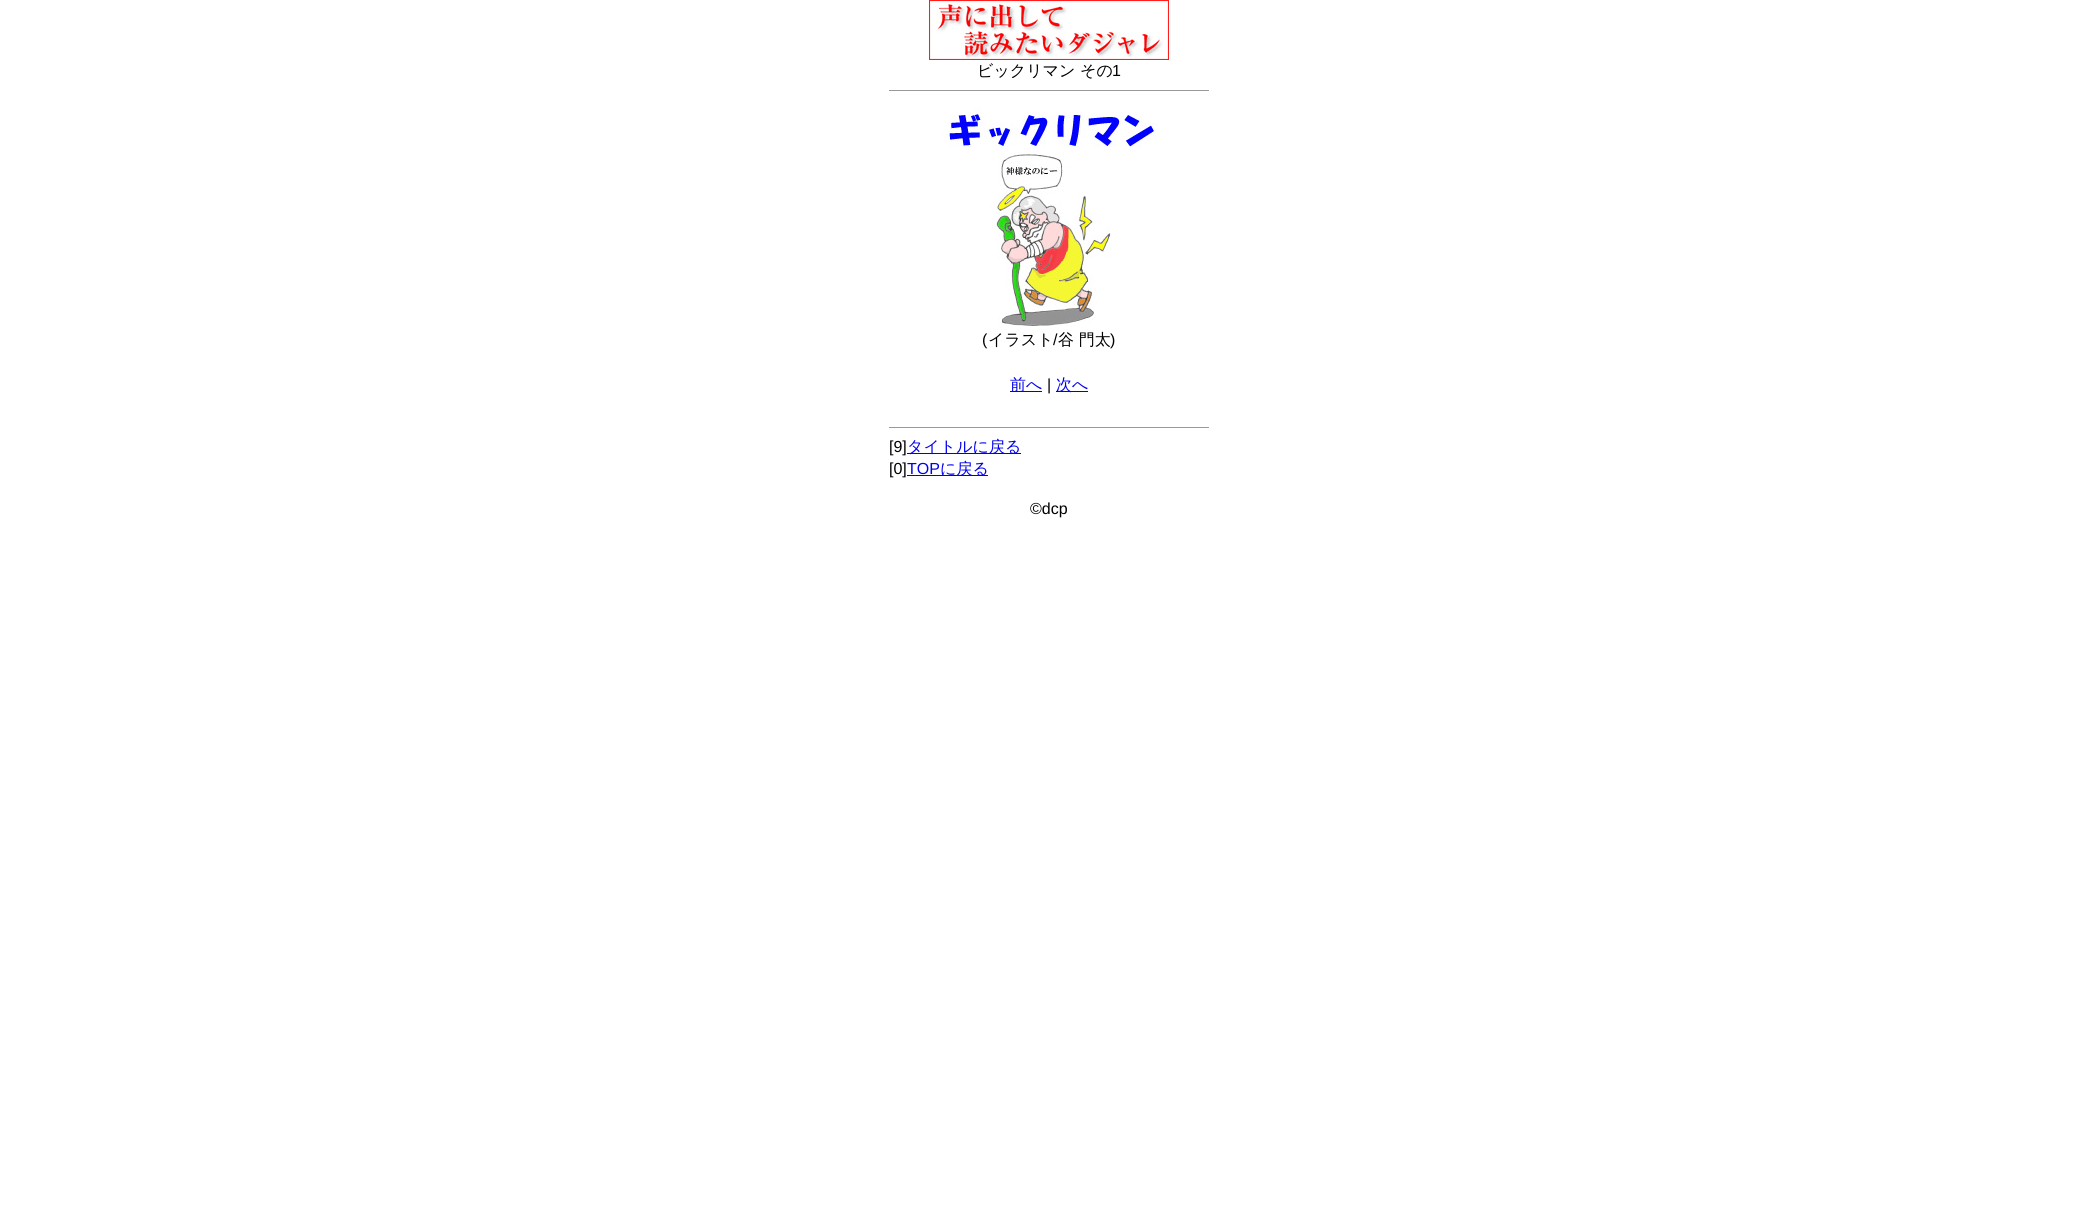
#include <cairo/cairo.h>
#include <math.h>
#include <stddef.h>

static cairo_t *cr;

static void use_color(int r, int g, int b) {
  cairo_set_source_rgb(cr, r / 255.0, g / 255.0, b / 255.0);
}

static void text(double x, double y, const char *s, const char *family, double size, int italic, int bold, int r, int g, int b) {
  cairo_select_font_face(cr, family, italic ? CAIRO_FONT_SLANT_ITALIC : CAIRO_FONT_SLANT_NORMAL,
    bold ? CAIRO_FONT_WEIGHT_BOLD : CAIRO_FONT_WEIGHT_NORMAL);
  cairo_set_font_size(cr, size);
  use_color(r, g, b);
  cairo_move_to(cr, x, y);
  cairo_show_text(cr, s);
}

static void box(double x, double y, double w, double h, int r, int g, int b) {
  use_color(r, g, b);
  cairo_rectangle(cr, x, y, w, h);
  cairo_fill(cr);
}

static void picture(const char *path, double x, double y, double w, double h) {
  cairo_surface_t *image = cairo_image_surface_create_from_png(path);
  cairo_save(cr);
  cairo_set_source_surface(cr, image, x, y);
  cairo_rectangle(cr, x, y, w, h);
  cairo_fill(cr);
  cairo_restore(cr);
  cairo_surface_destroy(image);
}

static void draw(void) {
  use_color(255, 255, 255);
  cairo_paint(cr);
  picture("img_01.png", 929, 0, 240, 60);
  box(889, 90, 320, 1, 153, 153, 153);
  picture("img_02.png", 942, 107, 216, 219);
  box(1010, 391, 32, 1, 0, 0, 238);
  box(1056, 391, 32, 1, 0, 0, 238);
  box(889, 427, 320, 1, 153, 153, 153);
  box(907, 453, 114, 1, 0, 0, 238);
  box(907, 475, 81, 1, 0, 0, 238);
  text(977, 76, "ビックリマン その", "WenQuanYi Zen Hei Medium", 16, 0, 0, 0, 0, 0);
  text(1112, 76, "1", "Liberation Sans", 16, 0, 0, 0, 0, 0);
  text(982, 345, "(", "Liberation Sans", 16, 0, 0, 0, 0, 0);
  text(988, 345, "イラスト", "WenQuanYi Zen Hei Medium", 16, 0, 0, 0, 0, 0);
  text(1053, 345, "/", "Liberation Sans", 16, 0, 0, 0, 0, 0);
  text(1058, 345, "谷 門太", "WenQuanYi Zen Hei Medium", 16, 0, 0, 0, 0, 0);
  text(1110, 345, ")", "Liberation Sans", 16, 0, 0, 0, 0, 0);
  text(1010, 390, "前へ", "WenQuanYi Zen Hei Medium", 16, 0, 0, 0, 0, 238);
  text(1047, 390, "|", "Liberation Sans", 16, 0, 0, 0, 0, 0);
  text(1056, 390, "次へ", "WenQuanYi Zen Hei Medium", 16, 0, 0, 0, 0, 238);
  text(889, 452, "[9]", "Liberation Sans", 16, 0, 0, 0, 0, 0);
  text(907, 452, "タイトルに戻る", "WenQuanYi Zen Hei Medium", 16, 0, 0, 0, 0, 238);
  text(889, 474, "[0]", "Liberation Sans", 16, 0, 0, 0, 0, 0);
  text(907, 474, "TOP", "Liberation Sans", 16, 0, 0, 0, 0, 238);
  text(940, 474, "に戻る", "WenQuanYi Zen Hei Medium", 16, 0, 0, 0, 0, 238);
  text(1030, 514, "©dcp", "Liberation Sans", 16, 0, 0, 0, 0, 0);
}

int main(void) {
  cairo_surface_t *surface = cairo_image_surface_create(CAIRO_FORMAT_RGB24, 2098, 1214);
  cr = cairo_create(surface);
  cairo_font_options_t *options = cairo_font_options_create();
  cairo_font_options_set_hint_metrics(options, CAIRO_HINT_METRICS_OFF);
  cairo_font_options_set_hint_style(options, CAIRO_HINT_STYLE_NONE);
  cairo_set_font_options(cr, options);
  cairo_set_miter_limit(cr, 4);
  draw();
  cairo_surface_write_to_png(surface, "out.png");
  cairo_font_options_destroy(options);
  cairo_destroy(cr);
  cairo_surface_destroy(surface);
  return 0;
}
